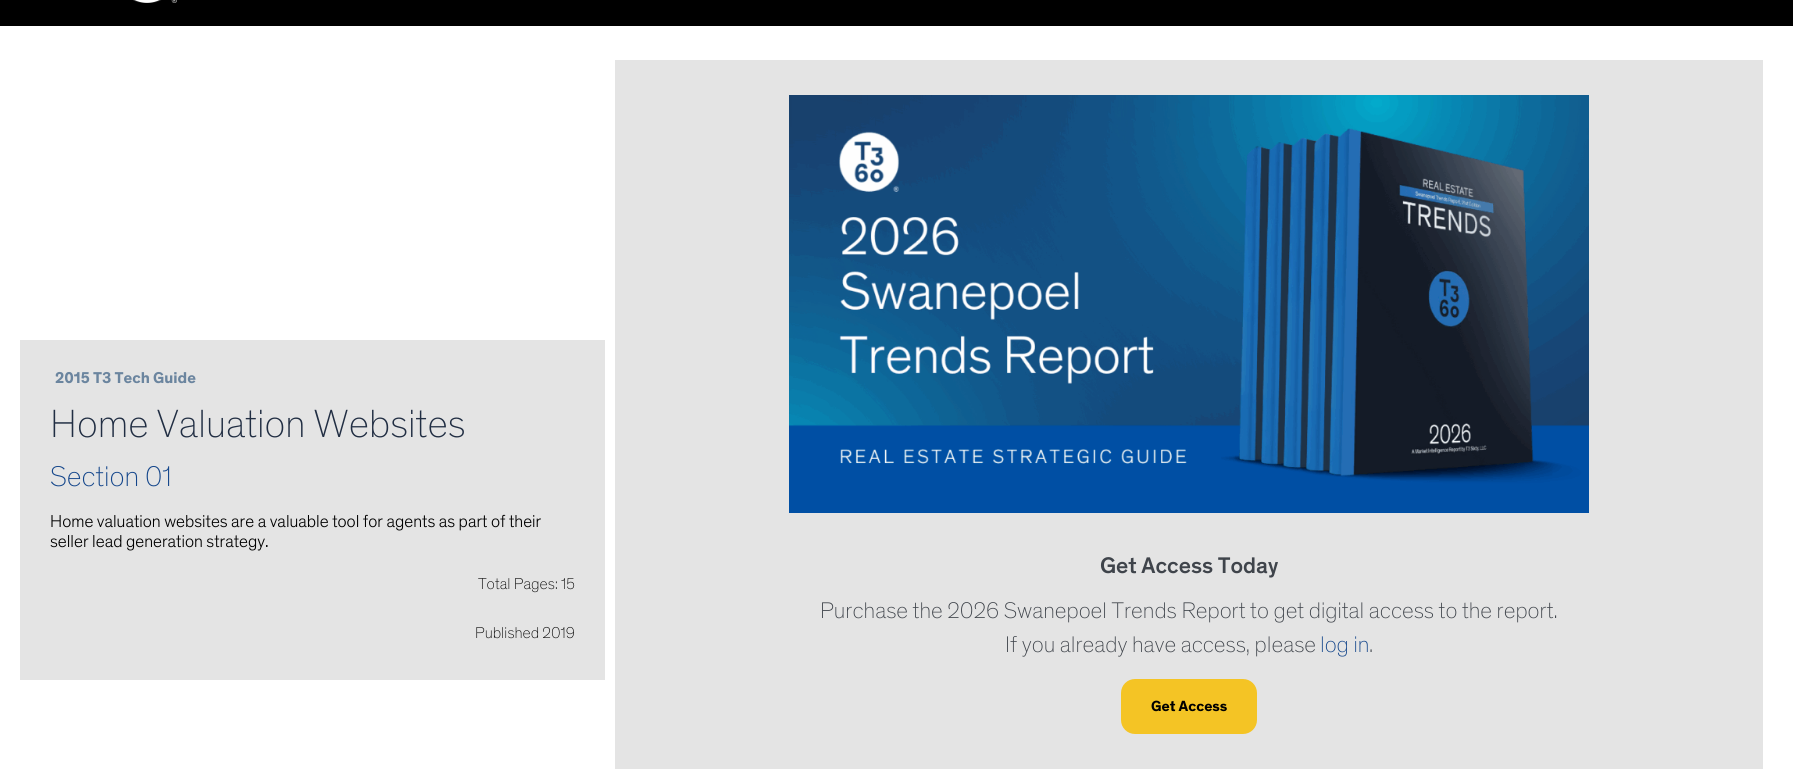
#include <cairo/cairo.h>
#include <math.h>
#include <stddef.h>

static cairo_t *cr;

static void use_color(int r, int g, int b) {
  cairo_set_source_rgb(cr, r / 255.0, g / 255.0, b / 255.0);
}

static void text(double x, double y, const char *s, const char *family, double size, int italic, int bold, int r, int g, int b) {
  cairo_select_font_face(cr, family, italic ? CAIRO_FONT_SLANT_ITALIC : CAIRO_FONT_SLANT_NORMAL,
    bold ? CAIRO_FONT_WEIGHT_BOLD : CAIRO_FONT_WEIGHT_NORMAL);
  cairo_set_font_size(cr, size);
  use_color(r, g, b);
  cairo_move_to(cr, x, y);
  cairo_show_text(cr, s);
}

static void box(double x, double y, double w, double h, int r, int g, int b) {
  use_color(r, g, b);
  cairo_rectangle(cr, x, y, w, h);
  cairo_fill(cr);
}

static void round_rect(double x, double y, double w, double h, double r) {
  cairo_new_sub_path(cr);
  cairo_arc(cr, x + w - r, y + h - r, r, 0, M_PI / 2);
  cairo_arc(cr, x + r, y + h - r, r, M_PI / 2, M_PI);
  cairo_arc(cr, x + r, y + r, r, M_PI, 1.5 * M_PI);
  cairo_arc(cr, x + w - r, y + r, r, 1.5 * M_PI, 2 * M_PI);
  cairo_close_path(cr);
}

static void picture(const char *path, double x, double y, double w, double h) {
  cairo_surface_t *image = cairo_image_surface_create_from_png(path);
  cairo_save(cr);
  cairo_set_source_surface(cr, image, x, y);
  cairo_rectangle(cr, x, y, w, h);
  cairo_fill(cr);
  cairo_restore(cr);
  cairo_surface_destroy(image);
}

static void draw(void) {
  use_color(255, 255, 255);
  cairo_paint(cr);
  box(0, 0, 1793, 26, 0, 0, 0);
  picture("img_01.png", 133, 0, 44, 3);
  box(20, 340, 585, 340, 228, 228, 228);
  box(615, 60, 1148, 709, 228, 228, 228);
  picture("img_02.png", 789, 95, 800, 418);
  use_color(244, 196, 37);
  round_rect(1121, 679, 136, 55, 14);
  cairo_fill(cr);
  text(55, 383, "2015 T3 Tech Guide", "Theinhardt", 16, 0, 1, 107, 133, 159);
  text(50, 437, "Home Valuation Websites", "Theinhardt Thin", 40, 0, 0, 33, 46, 67);
  text(50, 486, "Section 01", "Theinhardt Thin", 29, 0, 0, 20, 70, 139);
  text(50, 527, "Home valuation websites are a valuable tool for agents as part of their", "Theinhardt Light", 17.6, 0, 0, 0, 0, 0);
  text(50, 547, "seller lead generation strategy.", "Theinhardt Light", 17.6, 0, 0, 0, 0, 0);
  text(478, 589, "Total Pages: 15", "Theinhardt Thin", 16, 0, 0, 0, 0, 0);
  text(475, 638, "Published 2019", "Theinhardt Thin", 16, 0, 0, 0, 0, 0);
  text(1100, 573, "Get Access Today", "Theinhardt Medium", 23, 0, 0, 63, 68, 75);
  text(820, 618, "Purchase the 2026 Swanepoel Trends Report to get digital access to the report.", "Theinhardt Thin", 23, 0, 0, 63, 68, 75);
  text(1005, 652, "If you already have access, please", "Theinhardt Thin", 23, 0, 0, 63, 68, 75);
  text(1320, 652, "log in", "Theinhardt Thin", 23, 0, 0, 20, 70, 139);
  text(1369, 652, ".", "Theinhardt Thin", 23, 0, 0, 63, 68, 75);
  text(1151, 711, "Get Access", "Theinhardt", 15, 0, 1, 0, 0, 0);
}

int main(void) {
  cairo_surface_t *surface = cairo_image_surface_create(CAIRO_FORMAT_RGB24, 1793, 774);
  cr = cairo_create(surface);
  cairo_font_options_t *options = cairo_font_options_create();
  cairo_font_options_set_hint_metrics(options, CAIRO_HINT_METRICS_OFF);
  cairo_font_options_set_hint_style(options, CAIRO_HINT_STYLE_NONE);
  cairo_set_font_options(cr, options);
  cairo_set_miter_limit(cr, 4);
  draw();
  cairo_surface_write_to_png(surface, "out.png");
  cairo_font_options_destroy(options);
  cairo_destroy(cr);
  cairo_surface_destroy(surface);
  return 0;
}
